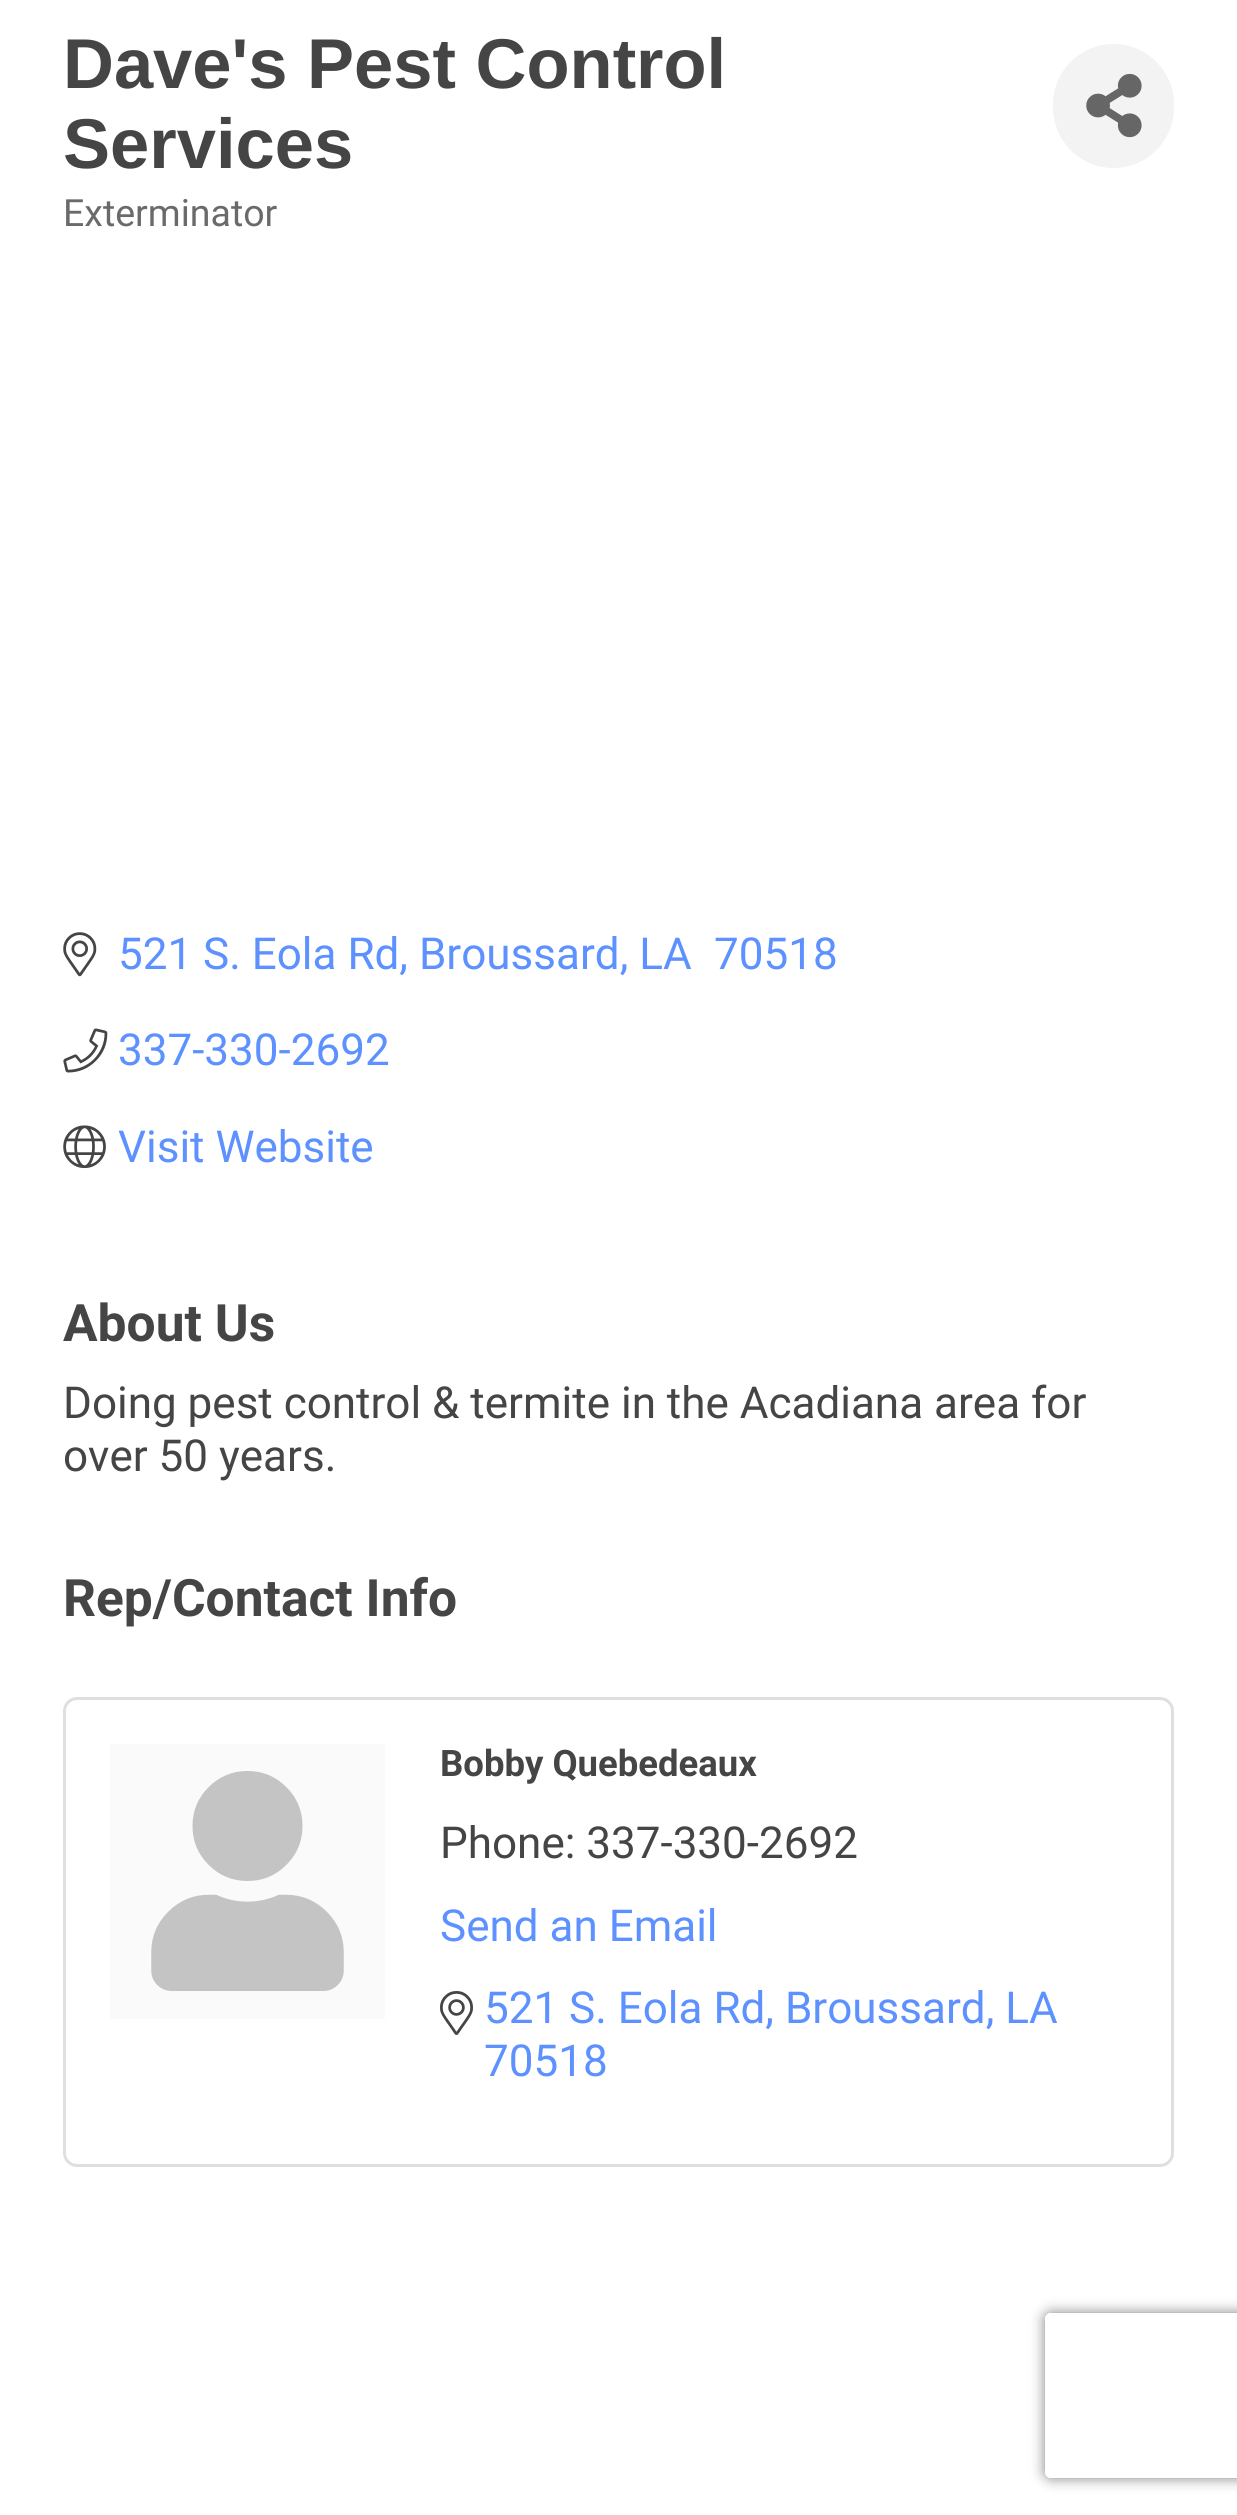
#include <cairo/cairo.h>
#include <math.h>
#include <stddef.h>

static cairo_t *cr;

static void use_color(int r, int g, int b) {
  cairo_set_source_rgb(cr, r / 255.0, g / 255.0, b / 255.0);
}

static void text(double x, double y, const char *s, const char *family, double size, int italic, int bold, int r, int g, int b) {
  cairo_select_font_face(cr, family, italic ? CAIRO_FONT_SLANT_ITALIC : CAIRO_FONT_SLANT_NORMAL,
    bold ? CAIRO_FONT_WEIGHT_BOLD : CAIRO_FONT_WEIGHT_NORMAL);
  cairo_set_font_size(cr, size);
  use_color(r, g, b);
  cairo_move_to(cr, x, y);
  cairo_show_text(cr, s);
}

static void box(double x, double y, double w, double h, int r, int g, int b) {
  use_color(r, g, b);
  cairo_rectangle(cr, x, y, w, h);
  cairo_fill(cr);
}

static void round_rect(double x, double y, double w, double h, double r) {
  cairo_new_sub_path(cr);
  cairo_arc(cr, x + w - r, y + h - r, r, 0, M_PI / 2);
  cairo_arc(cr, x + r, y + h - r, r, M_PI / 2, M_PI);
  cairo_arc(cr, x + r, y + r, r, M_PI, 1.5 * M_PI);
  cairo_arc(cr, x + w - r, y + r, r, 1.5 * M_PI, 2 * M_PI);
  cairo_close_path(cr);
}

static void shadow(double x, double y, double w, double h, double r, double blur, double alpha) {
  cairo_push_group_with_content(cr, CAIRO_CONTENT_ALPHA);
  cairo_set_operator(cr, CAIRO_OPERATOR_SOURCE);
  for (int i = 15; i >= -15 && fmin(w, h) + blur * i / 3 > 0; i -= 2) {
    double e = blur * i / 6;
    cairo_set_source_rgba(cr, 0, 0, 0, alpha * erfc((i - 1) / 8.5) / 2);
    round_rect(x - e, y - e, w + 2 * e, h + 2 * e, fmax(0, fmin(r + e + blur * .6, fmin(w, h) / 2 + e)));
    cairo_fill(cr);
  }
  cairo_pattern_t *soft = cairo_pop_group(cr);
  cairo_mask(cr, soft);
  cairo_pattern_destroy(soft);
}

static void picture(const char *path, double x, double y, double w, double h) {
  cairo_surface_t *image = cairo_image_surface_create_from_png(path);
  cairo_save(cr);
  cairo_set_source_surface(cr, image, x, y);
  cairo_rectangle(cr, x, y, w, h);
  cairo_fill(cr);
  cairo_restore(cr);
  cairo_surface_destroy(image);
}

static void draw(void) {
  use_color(255, 255, 255);
  cairo_paint(cr);
  use_color(243, 243, 243);
  round_rect(1053, 44, 121, 124, 60.5);
  cairo_fill(cr);
  picture("img_01.png", 1086, 73, 56, 65);
  picture("img_02.png", 63, 932, 34, 45);
  picture("img_03.png", 63, 1028, 45, 45);
  picture("img_04.png", 63, 1125, 43, 44);
  round_rect(64.5, 1698.5, 1108, 467, 12.5);
  use_color(223, 223, 223);
  cairo_set_line_width(cr, 3);
  cairo_stroke(cr);
  box(110, 1744, 275, 275, 250, 250, 250);
  picture("img_05.png", 151, 1771, 193, 220);
  picture("img_06.png", 440, 1991, 33, 44);
  cairo_save(cr);
  cairo_set_fill_rule(cr, CAIRO_FILL_RULE_EVEN_ODD);
  cairo_new_path(cr);
  cairo_move_to(cr, 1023, 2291);
  cairo_line_to(cr, 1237, 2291);
  cairo_line_to(cr, 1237, 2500);
  cairo_line_to(cr, 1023, 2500);
  cairo_close_path(cr);
  cairo_move_to(cr, 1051, 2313);
  cairo_line_to(cr, 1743, 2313);
  cairo_curve_to(cr, 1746.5, 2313, 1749, 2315.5, 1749, 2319);
  cairo_line_to(cr, 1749, 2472);
  cairo_curve_to(cr, 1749, 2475.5, 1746.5, 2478, 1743, 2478);
  cairo_line_to(cr, 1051, 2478);
  cairo_curve_to(cr, 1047.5, 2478, 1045, 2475.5, 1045, 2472);
  cairo_line_to(cr, 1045, 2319);
  cairo_curve_to(cr, 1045, 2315.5, 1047.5, 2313, 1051, 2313);
  cairo_close_path(cr);
  cairo_clip(cr);
  use_color(128, 128, 128);
  shadow(1045, 2313, 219, 165, 6, 7, 1);
  cairo_restore(cr);
  text(63, 88, "Dave's Pest Control", "Liberation Sans", 70.5, 0, 1, 69, 69, 69);
  text(63, 168, "Services", "Liberation Sans", 70.5, 0, 1, 69, 69, 69);
  text(63, 226, "Exterminator", "Roboto", 37.5, 0, 0, 106, 106, 106);
  text(118, 969, "521 S. Eola Rd, Broussard, LA", "Roboto", 44, 0, 0, 93, 145, 255);
  text(714, 969, "70518", "Roboto", 44, 0, 0, 93, 145, 255);
  text(118, 1065, "337-330-2692", "Roboto", 44, 0, 0, 93, 145, 255);
  text(118, 1162, "Visit Website", "Roboto", 44, 0, 0, 93, 145, 255);
  text(63, 1341, "About Us", "Roboto", 51.5, 0, 1, 69, 69, 69);
  text(63, 1418, "Doing pest control & termite in the Acadiana area for", "Roboto", 44, 0, 0, 69, 69, 69);
  text(63, 1471, "over 50 years.", "Roboto", 44, 0, 0, 69, 69, 69);
  text(63, 1616, "Rep/Contact Info", "Roboto", 51.5, 0, 1, 69, 69, 69);
  text(440, 1776, "Bobby Quebedeaux", "Roboto", 36.5, 0, 1, 69, 69, 69);
  text(440, 1858, "Phone: 337-330-2692", "Roboto", 44, 0, 0, 69, 69, 69);
  text(440, 1941, "Send an Email", "Roboto", 44, 0, 0, 93, 145, 255);
  text(484, 2023, "521 S. Eola Rd, Broussard, LA", "Roboto", 44, 0, 0, 93, 145, 255);
  text(484, 2076, "70518", "Roboto", 44, 0, 0, 93, 145, 255);
}

int main(void) {
  cairo_surface_t *surface = cairo_image_surface_create(CAIRO_FORMAT_RGB24, 1237, 2515);
  cr = cairo_create(surface);
  cairo_font_options_t *options = cairo_font_options_create();
  cairo_font_options_set_hint_metrics(options, CAIRO_HINT_METRICS_OFF);
  cairo_font_options_set_hint_style(options, CAIRO_HINT_STYLE_NONE);
  cairo_set_font_options(cr, options);
  cairo_set_miter_limit(cr, 4);
  draw();
  cairo_surface_write_to_png(surface, "out.png");
  cairo_font_options_destroy(options);
  cairo_destroy(cr);
  cairo_surface_destroy(surface);
  return 0;
}
